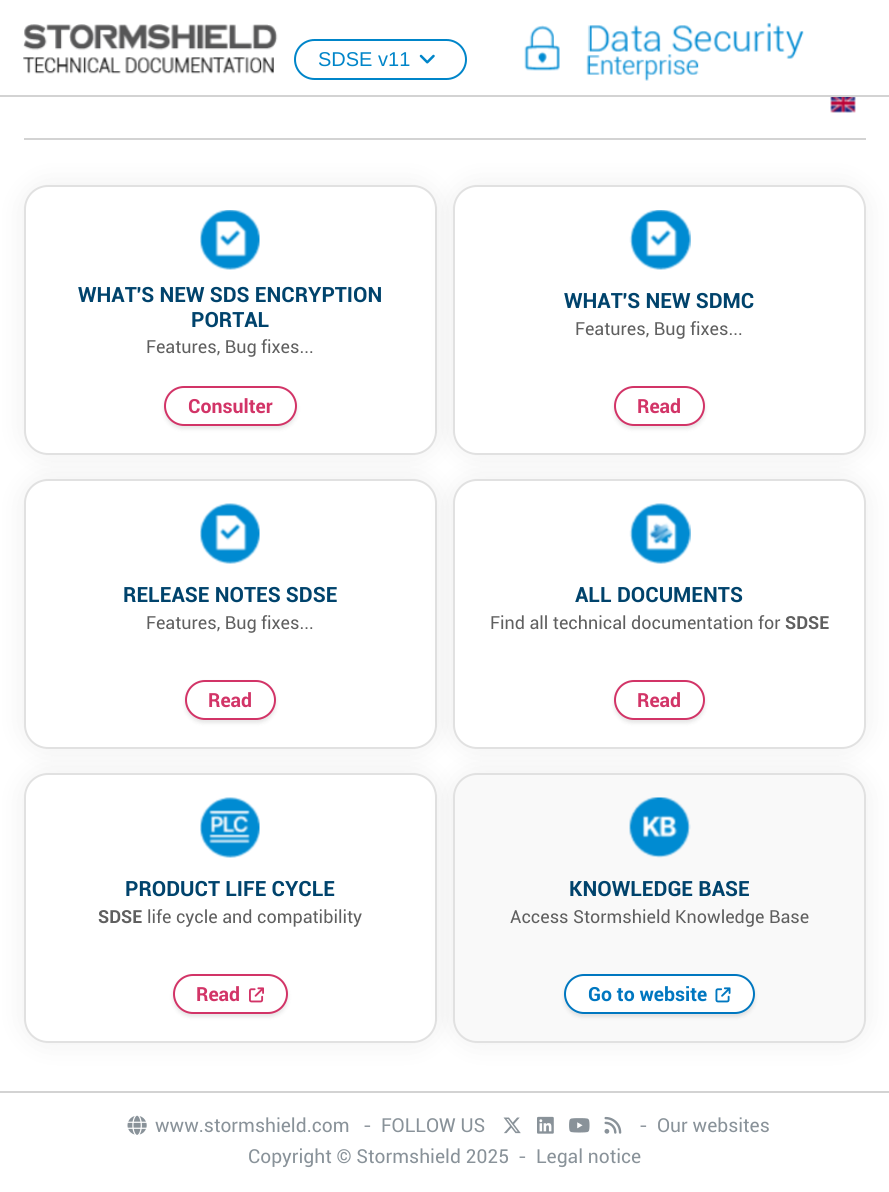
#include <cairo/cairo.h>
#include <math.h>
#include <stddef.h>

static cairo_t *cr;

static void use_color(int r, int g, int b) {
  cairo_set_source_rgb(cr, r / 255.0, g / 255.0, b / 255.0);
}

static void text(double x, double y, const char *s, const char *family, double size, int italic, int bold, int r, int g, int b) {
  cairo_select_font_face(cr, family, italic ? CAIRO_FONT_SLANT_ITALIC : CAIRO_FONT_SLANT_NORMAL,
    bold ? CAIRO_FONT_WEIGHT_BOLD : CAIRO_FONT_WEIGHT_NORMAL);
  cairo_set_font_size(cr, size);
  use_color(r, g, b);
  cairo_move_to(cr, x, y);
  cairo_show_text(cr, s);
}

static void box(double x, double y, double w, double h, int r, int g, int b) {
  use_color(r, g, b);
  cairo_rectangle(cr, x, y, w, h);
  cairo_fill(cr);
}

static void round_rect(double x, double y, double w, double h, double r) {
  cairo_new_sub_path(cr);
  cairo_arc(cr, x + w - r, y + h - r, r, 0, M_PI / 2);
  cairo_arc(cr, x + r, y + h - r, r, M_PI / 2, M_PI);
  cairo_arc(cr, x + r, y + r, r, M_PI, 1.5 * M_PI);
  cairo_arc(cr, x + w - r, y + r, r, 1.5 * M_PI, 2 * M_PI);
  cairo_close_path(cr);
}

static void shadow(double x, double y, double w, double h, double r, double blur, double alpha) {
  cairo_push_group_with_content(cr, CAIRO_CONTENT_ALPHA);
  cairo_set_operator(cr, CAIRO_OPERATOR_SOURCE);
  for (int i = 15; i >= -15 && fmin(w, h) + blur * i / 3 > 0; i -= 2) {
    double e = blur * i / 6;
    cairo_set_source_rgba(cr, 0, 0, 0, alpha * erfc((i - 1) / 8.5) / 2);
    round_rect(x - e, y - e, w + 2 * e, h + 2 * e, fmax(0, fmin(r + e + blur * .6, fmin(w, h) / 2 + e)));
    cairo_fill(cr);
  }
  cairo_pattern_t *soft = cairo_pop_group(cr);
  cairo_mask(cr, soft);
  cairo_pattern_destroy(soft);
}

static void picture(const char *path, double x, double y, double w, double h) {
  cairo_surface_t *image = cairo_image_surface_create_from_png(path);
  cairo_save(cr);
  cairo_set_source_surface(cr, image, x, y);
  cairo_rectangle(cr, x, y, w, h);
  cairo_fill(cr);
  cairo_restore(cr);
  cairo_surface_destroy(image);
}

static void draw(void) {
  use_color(255, 255, 255);
  cairo_paint(cr);
  box(0, 95, 889, 2, 211, 211, 211);
  picture("img_01.png", 524, 22, 280, 59);
  picture("img_02.png", 23, 24, 255, 50);
  round_rect(295, 40, 171, 39, 19.5);
  use_color(0, 133, 201);
  cairo_stroke(cr);
  picture("img_03.png", 419, 54, 16, 10);
  box(24, 138, 842, 2, 211, 211, 211);
  picture("img_04.png", 830, 97, 26, 16);
  use_color(50, 50, 50);
  shadow(24, 185, 413, 270, 24, 15, 0.08);
  use_color(255, 255, 255);
  round_rect(25, 186, 411, 268, 23);
  cairo_fill_preserve(cr);
  use_color(225, 225, 225);
  cairo_stroke(cr);
  picture("img_05.png", 200, 210, 60, 60);
  use_color(0, 0, 0);
  shadow(164, 389, 133, 40, 20, 2, 0.1);
  use_color(255, 255, 255);
  round_rect(165, 387, 131, 38, 19);
  cairo_fill_preserve(cr);
  use_color(210, 52, 103);
  cairo_stroke(cr);
  use_color(50, 50, 50);
  shadow(453, 185, 413, 270, 24, 15, 0.08);
  use_color(255, 255, 255);
  round_rect(454, 186, 411, 268, 23);
  cairo_fill_preserve(cr);
  use_color(225, 225, 225);
  cairo_stroke(cr);
  picture("img_06.png", 629, 210, 62, 60);
  use_color(0, 0, 0);
  shadow(614, 389, 91, 40, 20, 2, 0.1);
  use_color(255, 255, 255);
  round_rect(615, 387, 89, 38, 19);
  cairo_fill_preserve(cr);
  use_color(210, 52, 103);
  cairo_stroke(cr);
  use_color(50, 50, 50);
  shadow(24, 479, 413, 270, 24, 15, 0.08);
  use_color(255, 255, 255);
  round_rect(25, 480, 411, 268, 23);
  cairo_fill_preserve(cr);
  use_color(225, 225, 225);
  cairo_stroke(cr);
  picture("img_07.png", 200, 503, 60, 61);
  use_color(0, 0, 0);
  shadow(185, 683, 91, 40, 20, 2, 0.1);
  use_color(255, 255, 255);
  round_rect(186, 681, 89, 38, 19);
  cairo_fill_preserve(cr);
  use_color(210, 52, 103);
  cairo_stroke(cr);
  use_color(50, 50, 50);
  shadow(453, 479, 413, 270, 24, 15, 0.08);
  use_color(255, 255, 255);
  round_rect(454, 480, 411, 268, 23);
  cairo_fill_preserve(cr);
  use_color(225, 225, 225);
  cairo_stroke(cr);
  picture("img_08.png", 629, 503, 62, 61);
  use_color(0, 0, 0);
  shadow(614, 683, 91, 40, 20, 2, 0.1);
  use_color(255, 255, 255);
  round_rect(615, 681, 89, 38, 19);
  cairo_fill_preserve(cr);
  use_color(210, 52, 103);
  cairo_stroke(cr);
  use_color(50, 50, 50);
  shadow(24, 773, 413, 270, 24, 15, 0.08);
  use_color(255, 255, 255);
  round_rect(25, 774, 411, 268, 23);
  cairo_fill_preserve(cr);
  use_color(225, 225, 225);
  cairo_stroke(cr);
  picture("img_09.png", 200, 797, 60, 61);
  use_color(0, 0, 0);
  shadow(173, 977, 115, 40, 20, 2, 0.1);
  use_color(255, 255, 255);
  round_rect(174, 975, 113, 38, 19);
  cairo_fill_preserve(cr);
  use_color(210, 52, 103);
  cairo_stroke(cr);
  picture("img_10.png", 249, 987, 15, 16);
  use_color(50, 50, 50);
  shadow(453, 773, 413, 270, 24, 15, 0.08);
  use_color(249, 249, 249);
  round_rect(454, 774, 411, 268, 23);
  cairo_fill_preserve(cr);
  use_color(225, 225, 225);
  cairo_stroke(cr);
  picture("img_11.png", 629, 797, 62, 61);
  use_color(0, 0, 0);
  shadow(564, 977, 191, 40, 20, 2, 0.1);
  use_color(255, 255, 255);
  round_rect(565, 975, 189, 38, 19);
  cairo_fill_preserve(cr);
  use_color(0, 119, 192);
  cairo_stroke(cr);
  picture("img_12.png", 715, 987, 16, 16);
  box(0, 1091, 889, 2, 211, 211, 211);
  picture("img_13.png", 127, 1115, 20, 20);
  picture("img_14.png", 503, 1117, 18, 17);
  picture("img_15.png", 537, 1116, 17, 18);
  picture("img_16.png", 569, 1118, 21, 15);
  picture("img_17.png", 604, 1116, 18, 18);
  text(318, 66, "SDSE v11", "Liberation Sans", 20, 0, 0, 0, 133, 201);
  text(78, 302, "WHAT'S NEW SDS ENCRYPTION", "Roboto", 21, 0, 1, 0, 67, 108);
  text(191, 327, "PORTAL", "Roboto", 21, 0, 1, 0, 67, 108);
  text(146, 353, "Features, Bug fixes...", "Roboto", 18, 0, 0, 95, 95, 95);
  text(188, 413, "Consulter", "Roboto", 19.5, 0, 1, 210, 52, 103);
  text(564, 308, "WHAT'S NEW SDMC", "Roboto", 21, 0, 1, 0, 67, 108);
  text(575, 335, "Features, Bug fixes...", "Roboto", 18, 0, 0, 95, 95, 95);
  text(637, 413, "Read", "Roboto", 19.5, 0, 1, 210, 52, 103);
  text(123, 602, "RELEASE NOTES SDSE", "Roboto", 21, 0, 1, 0, 67, 108);
  text(146, 629, "Features, Bug fixes...", "Roboto", 18, 0, 0, 95, 95, 95);
  text(208, 707, "Read", "Roboto", 19.5, 0, 1, 210, 52, 103);
  text(575, 602, "ALL DOCUMENTS", "Roboto", 21, 0, 1, 0, 67, 108);
  text(490, 629, "Find all technical documentation for", "Roboto", 18, 0, 0, 95, 95, 95);
  text(785, 629, "SDSE", "Roboto", 18, 0, 1, 95, 95, 95);
  text(637, 707, "Read", "Roboto", 19.5, 0, 1, 210, 52, 103);
  text(125, 896, "PRODUCT LIFE CYCLE", "Roboto", 21, 0, 1, 0, 67, 108);
  text(98, 923, "SDSE", "Roboto", 18, 0, 1, 95, 95, 95);
  text(147, 923, "life cycle and compatibility", "Roboto", 18, 0, 0, 95, 95, 95);
  text(196, 1001, "Read", "Roboto", 19.5, 0, 1, 210, 52, 103);
  text(569, 896, "KNOWLEDGE BASE", "Roboto", 21, 0, 1, 0, 67, 108);
  text(510, 923, "Access Stormshield Knowledge Base", "Roboto", 18, 0, 0, 95, 95, 95);
  text(588, 1001, "Go to website", "Roboto", 19.5, 0, 1, 0, 119, 192);
  text(155, 1132, "www.stormshield.com", "Roboto", 19.25, 0, 0, 137, 146, 153);
  text(363, 1132, "-", "Roboto", 19.25, 0, 0, 137, 146, 153);
  text(381, 1132, "FOLLOW US", "Roboto", 19.25, 0, 0, 137, 146, 153);
  text(639, 1132, "-", "Roboto", 19.25, 0, 0, 137, 146, 153);
  text(657, 1132, "Our websites", "Roboto", 19.25, 0, 0, 137, 146, 153);
  text(248, 1163, "Copyright © Stormshield 2025", "Roboto", 19.25, 0, 0, 137, 146, 153);
  text(518, 1163, "-", "Roboto", 19.25, 0, 0, 137, 146, 153);
  text(536, 1163, "Legal notice", "Roboto", 19.25, 0, 0, 137, 146, 153);
}

int main(void) {
  cairo_surface_t *surface = cairo_image_surface_create(CAIRO_FORMAT_RGB24, 889, 1192);
  cr = cairo_create(surface);
  cairo_font_options_t *options = cairo_font_options_create();
  cairo_font_options_set_hint_metrics(options, CAIRO_HINT_METRICS_OFF);
  cairo_font_options_set_hint_style(options, CAIRO_HINT_STYLE_NONE);
  cairo_set_font_options(cr, options);
  cairo_set_miter_limit(cr, 4);
  draw();
  cairo_surface_write_to_png(surface, "out.png");
  cairo_font_options_destroy(options);
  cairo_destroy(cr);
  cairo_surface_destroy(surface);
  return 0;
}
